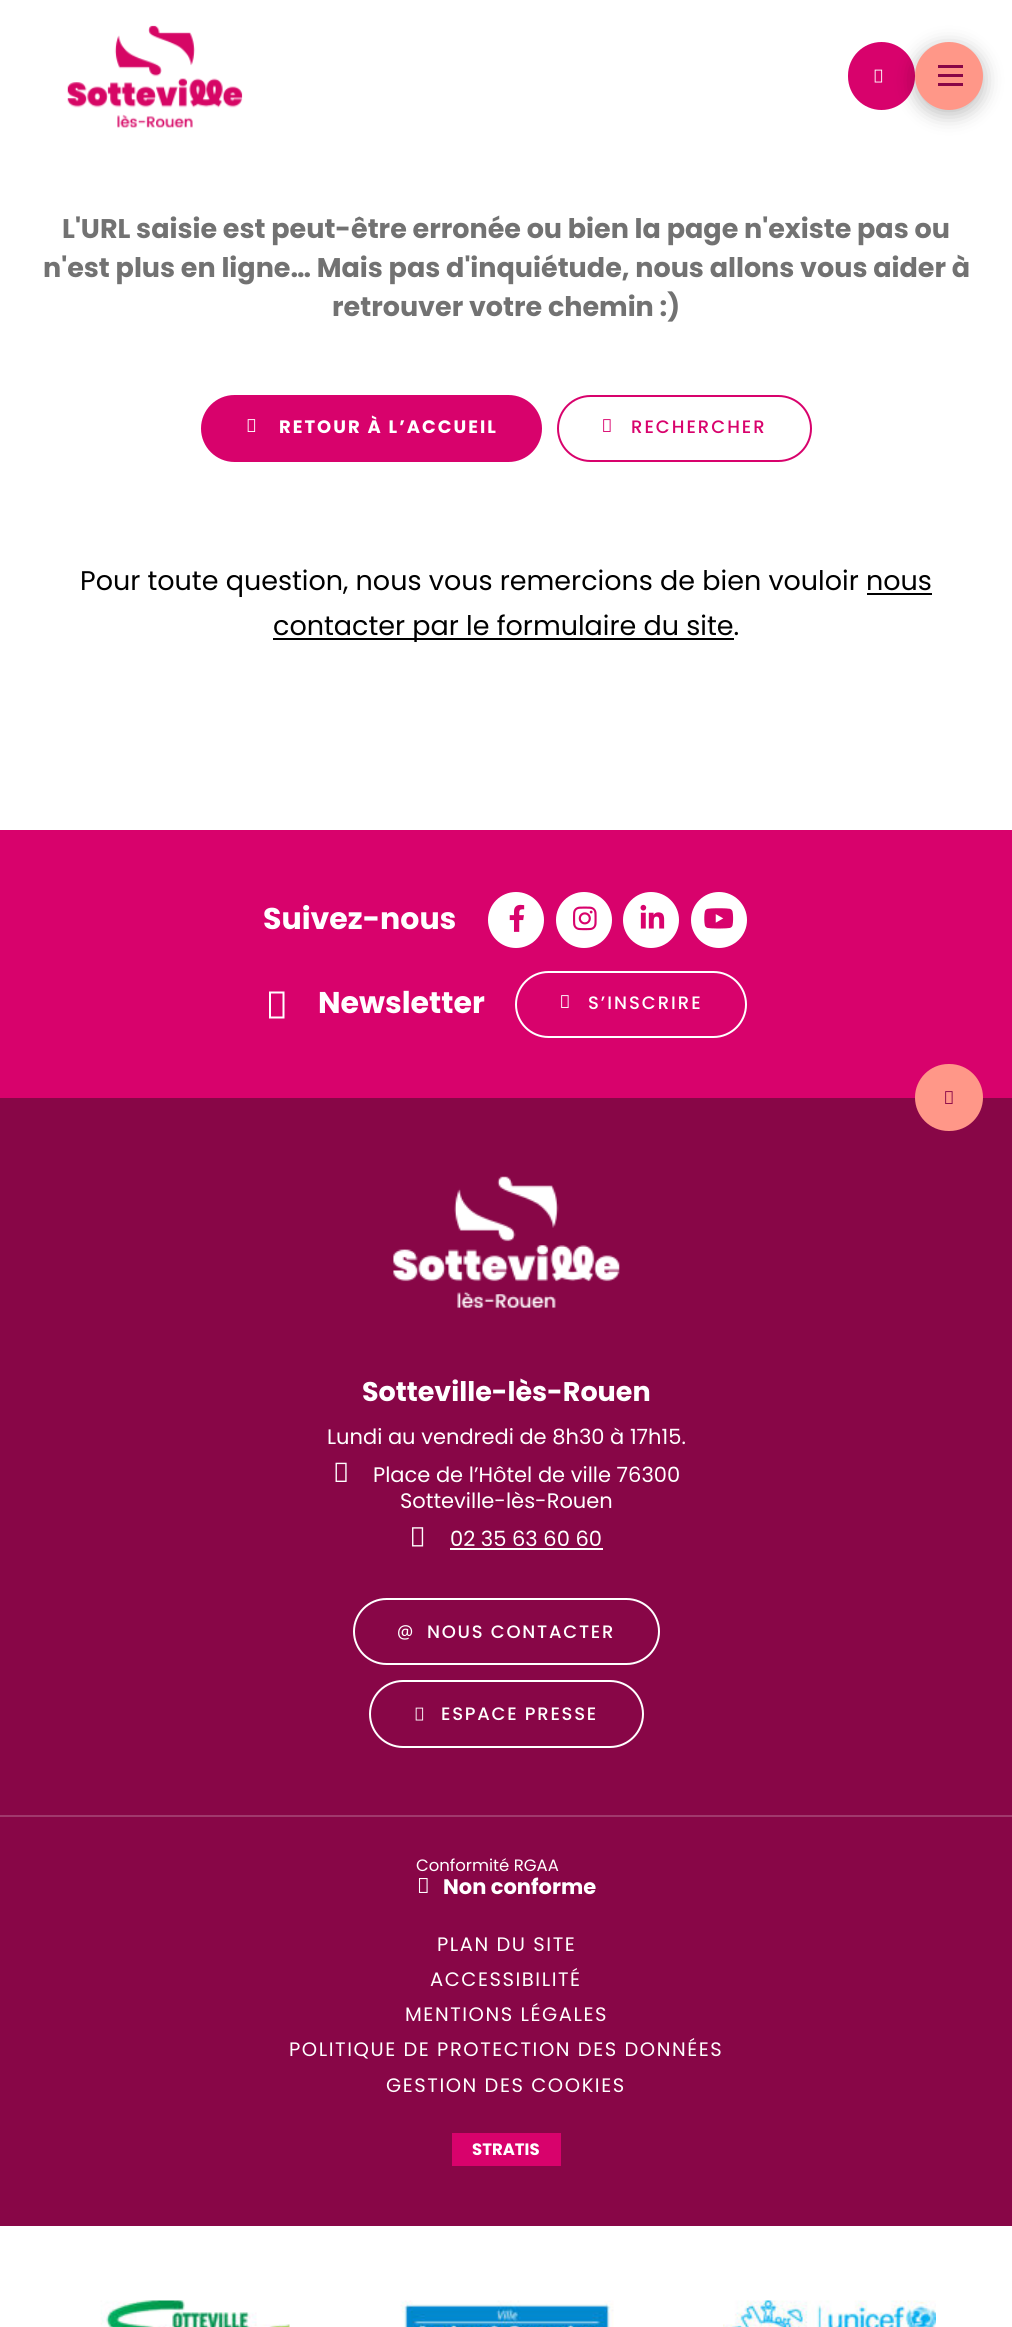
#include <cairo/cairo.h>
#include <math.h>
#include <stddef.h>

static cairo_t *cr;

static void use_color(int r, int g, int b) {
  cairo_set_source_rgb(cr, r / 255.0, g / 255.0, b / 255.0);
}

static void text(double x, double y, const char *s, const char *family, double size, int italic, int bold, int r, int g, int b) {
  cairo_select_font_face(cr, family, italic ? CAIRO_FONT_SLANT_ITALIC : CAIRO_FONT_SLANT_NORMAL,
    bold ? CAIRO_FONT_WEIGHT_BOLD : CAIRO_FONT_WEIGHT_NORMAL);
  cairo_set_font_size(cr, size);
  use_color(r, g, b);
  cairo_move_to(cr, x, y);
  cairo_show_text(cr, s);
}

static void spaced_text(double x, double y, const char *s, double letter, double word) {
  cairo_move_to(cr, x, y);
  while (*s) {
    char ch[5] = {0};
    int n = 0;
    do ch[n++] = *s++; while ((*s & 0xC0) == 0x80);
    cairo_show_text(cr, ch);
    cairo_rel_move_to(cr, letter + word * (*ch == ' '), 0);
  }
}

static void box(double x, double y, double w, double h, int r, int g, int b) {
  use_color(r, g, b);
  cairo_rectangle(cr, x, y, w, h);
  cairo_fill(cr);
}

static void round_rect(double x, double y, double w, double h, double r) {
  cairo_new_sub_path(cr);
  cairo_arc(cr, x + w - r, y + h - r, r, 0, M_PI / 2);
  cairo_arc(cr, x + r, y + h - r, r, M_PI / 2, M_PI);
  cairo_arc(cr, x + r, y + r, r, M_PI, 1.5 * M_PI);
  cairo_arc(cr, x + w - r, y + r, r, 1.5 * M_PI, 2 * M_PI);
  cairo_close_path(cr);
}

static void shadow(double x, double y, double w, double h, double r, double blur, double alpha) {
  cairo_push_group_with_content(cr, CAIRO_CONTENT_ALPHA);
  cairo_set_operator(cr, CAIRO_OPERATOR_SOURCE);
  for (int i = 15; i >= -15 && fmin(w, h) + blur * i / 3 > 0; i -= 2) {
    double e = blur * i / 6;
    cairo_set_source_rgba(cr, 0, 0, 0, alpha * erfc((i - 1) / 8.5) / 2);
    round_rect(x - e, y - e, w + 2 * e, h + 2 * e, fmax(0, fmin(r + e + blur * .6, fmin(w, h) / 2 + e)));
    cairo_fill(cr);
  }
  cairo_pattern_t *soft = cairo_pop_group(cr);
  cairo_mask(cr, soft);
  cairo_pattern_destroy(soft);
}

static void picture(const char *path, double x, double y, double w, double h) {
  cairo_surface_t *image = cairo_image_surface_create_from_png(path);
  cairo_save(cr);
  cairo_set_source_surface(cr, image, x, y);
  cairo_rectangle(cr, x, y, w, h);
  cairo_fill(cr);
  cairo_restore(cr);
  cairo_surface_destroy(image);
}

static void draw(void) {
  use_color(255, 255, 255);
  cairo_paint(cr);
  picture("img_01.png", 67, 25, 176, 103);
  use_color(216, 2, 108);
  round_rect(848, 42, 67, 68, 33.5);
  cairo_fill(cr);
  picture("img_02.png", 874, 69, 9, 14);
  use_color(0, 0, 0);
  shadow(915, 47, 68, 67, 33.5, 10, 0.28);
  use_color(255, 151, 136);
  cairo_arc(cr, 949, 76, 34, 0, 2 * M_PI);
  cairo_fill(cr);
  box(938, 65, 25, 3, 136, 6, 71);
  box(938, 74, 25, 3, 136, 6, 71);
  box(938, 83, 25, 3, 136, 6, 71);
  use_color(216, 2, 108);
  round_rect(202, 396, 339, 65, 32.5);
  cairo_fill_preserve(cr);
  cairo_stroke(cr);
  picture("img_03.png", 247, 419, 9, 13);
  round_rect(558, 396, 253, 65, 32.5);
  cairo_stroke(cr);
  picture("img_04.png", 603, 419, 8, 13);
  box(867, 593, 65, 2, 0, 0, 0);
  box(273, 638, 461, 2, 0, 0, 0);
  box(0, 830, 1012, 268, 216, 2, 108);
  use_color(255, 255, 255);
  cairo_arc(cr, 516, 920, 29, 0, 2 * M_PI);
  cairo_fill_preserve(cr);
  use_color(216, 2, 108);
  cairo_stroke(cr);
  picture("img_05.png", 509, 904, 16, 28);
  use_color(255, 255, 255);
  cairo_arc(cr, 584, 920, 29, 0, 2 * M_PI);
  cairo_fill_preserve(cr);
  use_color(216, 2, 108);
  cairo_stroke(cr);
  picture("img_06.png", 573, 906, 24, 25);
  use_color(255, 255, 255);
  cairo_arc(cr, 651, 920, 29, 0, 2 * M_PI);
  cairo_fill_preserve(cr);
  use_color(216, 2, 108);
  cairo_stroke(cr);
  picture("img_07.png", 640, 904, 25, 25);
  use_color(255, 255, 255);
  cairo_arc(cr, 719, 920, 29, 0, 2 * M_PI);
  cairo_fill_preserve(cr);
  use_color(216, 2, 108);
  cairo_stroke(cr);
  picture("img_08.png", 704, 908, 30, 21);
  use_color(255, 255, 255);
  cairo_new_path(cr);
  cairo_move_to(cr, 269, 1018.5);
  cairo_line_to(cr, 269, 991.5);
  cairo_line_to(cr, 284.5, 991.5);
  cairo_line_to(cr, 284.5, 1018.5);
  cairo_close_path(cr);
  cairo_move_to(cr, 271, 1016.5);
  cairo_line_to(cr, 282.5, 1016.5);
  cairo_line_to(cr, 282.5, 993.5);
  cairo_line_to(cr, 271, 993.5);
  cairo_close_path(cr);
  cairo_fill(cr);
  round_rect(516, 972, 230, 65, 32.5);
  cairo_stroke(cr);
  picture("img_09.png", 561, 995, 8, 13);
  box(0, 1098, 1012, 717, 136, 6, 71);
  picture("img_10.png", 393, 1176, 227, 133);
  picture("img_11.png", 335, 1462, 12, 20);
  picture("img_12.png", 412, 1527, 12, 20);
  box(450, 1548, 153, 2, 255, 255, 255);
  round_rect(354, 1599, 305, 65, 32.5);
  cairo_stroke(cr);
  round_rect(370, 1681, 273, 66, 33);
  cairo_stroke(cr);
  picture("img_13.png", 415, 1707, 9, 14);
  box(0, 1817, 1012, 409, 136, 6, 71);
  box(0, 1815, 1012, 2, 160, 56, 108);
  picture("img_14.png", 418, 1878, 10, 15);
  box(452, 2133, 109, 33, 216, 2, 108);
  picture("img_15.png", 100, 2300, 190, 27);
  picture("img_16.png", 400, 2300, 214, 27);
  picture("img_17.png", 723, 2300, 213, 27);
  use_color(255, 151, 136);
  round_rect(915, 1064, 68, 67, 33.5);
  cairo_fill(cr);
  picture("img_18.png", 945, 1091, 8, 13);
  text(62, 238, "L'URL saisie est peut-être erronée ou bien la page n'existe pas ou", "Poppins", 27, 0, 1, 114, 114, 114);
  text(43, 277, "n'est plus en ligne… Mais pas d'inquiétude, nous allons vous aider à", "Poppins", 27, 0, 1, 114, 114, 114);
  text(332, 316, "retrouver votre chemin :)", "Poppins", 27, 0, 1, 114, 114, 114);
  cairo_set_font_size(cr, 18);
  use_color(255, 255, 255);
  spaced_text(279, 433, "RETOUR À L’ACCUEIL", 2, 0);
  cairo_select_font_face(cr, "Poppins Medium", CAIRO_FONT_SLANT_NORMAL, CAIRO_FONT_WEIGHT_NORMAL);
  use_color(216, 2, 108);
  spaced_text(631, 433, "RECHERCHER", 2, 0);
  text(80, 590, "Pour toute question, nous vous remercions de bien vouloir nous", "Poppins", 27, 0, 0, 0, 0, 0);
  text(273, 635, "contacter par le formulaire du site.", "Poppins", 27, 0, 0, 0, 0, 0);
  text(263, 929, "Suivez-nous", "Poppins", 30, 0, 1, 255, 255, 255);
  text(318, 1013, "Newsletter", "Poppins", 30, 0, 1, 255, 255, 255);
  cairo_select_font_face(cr, "Poppins Medium", CAIRO_FONT_SLANT_NORMAL, CAIRO_FONT_WEIGHT_NORMAL);
  cairo_set_font_size(cr, 18);
  spaced_text(588, 1009, "S’INSCRIRE", 2, 0);
  text(362, 1401, "Sotteville-lès-Rouen", "Poppins", 27, 0, 1, 255, 255, 255);
  text(327, 1444, "Lundi au vendredi de 8h30 à 17h15.", "Poppins", 21, 0, 0, 255, 255, 255);
  text(373, 1482, "Place de l’Hôtel de ville 76300", "Poppins", 21, 0, 0, 255, 255, 255);
  text(400, 1508, "Sotteville-lès-Rouen", "Poppins", 21, 0, 0, 255, 255, 255);
  text(450, 1546, "02 35 63 60 60", "Poppins", 21, 0, 0, 255, 255, 255);
  text(397, 1638, "@", "Noto Sans", 18, 0, 0, 255, 255, 255);
  cairo_select_font_face(cr, "Poppins Medium", CAIRO_FONT_SLANT_NORMAL, CAIRO_FONT_WEIGHT_NORMAL);
  spaced_text(427, 1638, "NOUS CONTACTER", 1.75, 0);
  spaced_text(441, 1720, "ESPACE PRESSE", 1.75, 0);
  text(416, 1871, "Conformité RGAA", "Poppins", 16.5, 0, 0, 255, 255, 255);
  text(443, 1894, "Non conforme", "Poppins", 21, 0, 1, 255, 255, 255);
  cairo_select_font_face(cr, "Poppins", CAIRO_FONT_SLANT_NORMAL, CAIRO_FONT_WEIGHT_NORMAL);
  cairo_set_font_size(cr, 19.5);
  spaced_text(437, 1951, "PLAN DU SITE", 1.55, 0);
  spaced_text(430, 1986, "ACCESSIBILITÉ", 1.55, 0);
  spaced_text(405, 2021, "MENTIONS LÉGALES", 1.55, 0);
  spaced_text(289, 2056, "POLITIQUE DE PROTECTION DES DONNÉES", 1.55, 0);
  spaced_text(386, 2092, "GESTION DES COOKIES", 1.55, 0);
  text(472, 2155, "STRATIS", "Poppins", 16.5, 0, 1, 255, 255, 255);
}

int main(void) {
  cairo_surface_t *surface = cairo_image_surface_create(CAIRO_FORMAT_RGB24, 1012, 2327);
  cr = cairo_create(surface);
  cairo_font_options_t *options = cairo_font_options_create();
  cairo_font_options_set_hint_metrics(options, CAIRO_HINT_METRICS_OFF);
  cairo_font_options_set_hint_style(options, CAIRO_HINT_STYLE_NONE);
  cairo_set_font_options(cr, options);
  cairo_set_miter_limit(cr, 4);
  draw();
  cairo_surface_write_to_png(surface, "out.png");
  cairo_font_options_destroy(options);
  cairo_destroy(cr);
  cairo_surface_destroy(surface);
  return 0;
}
